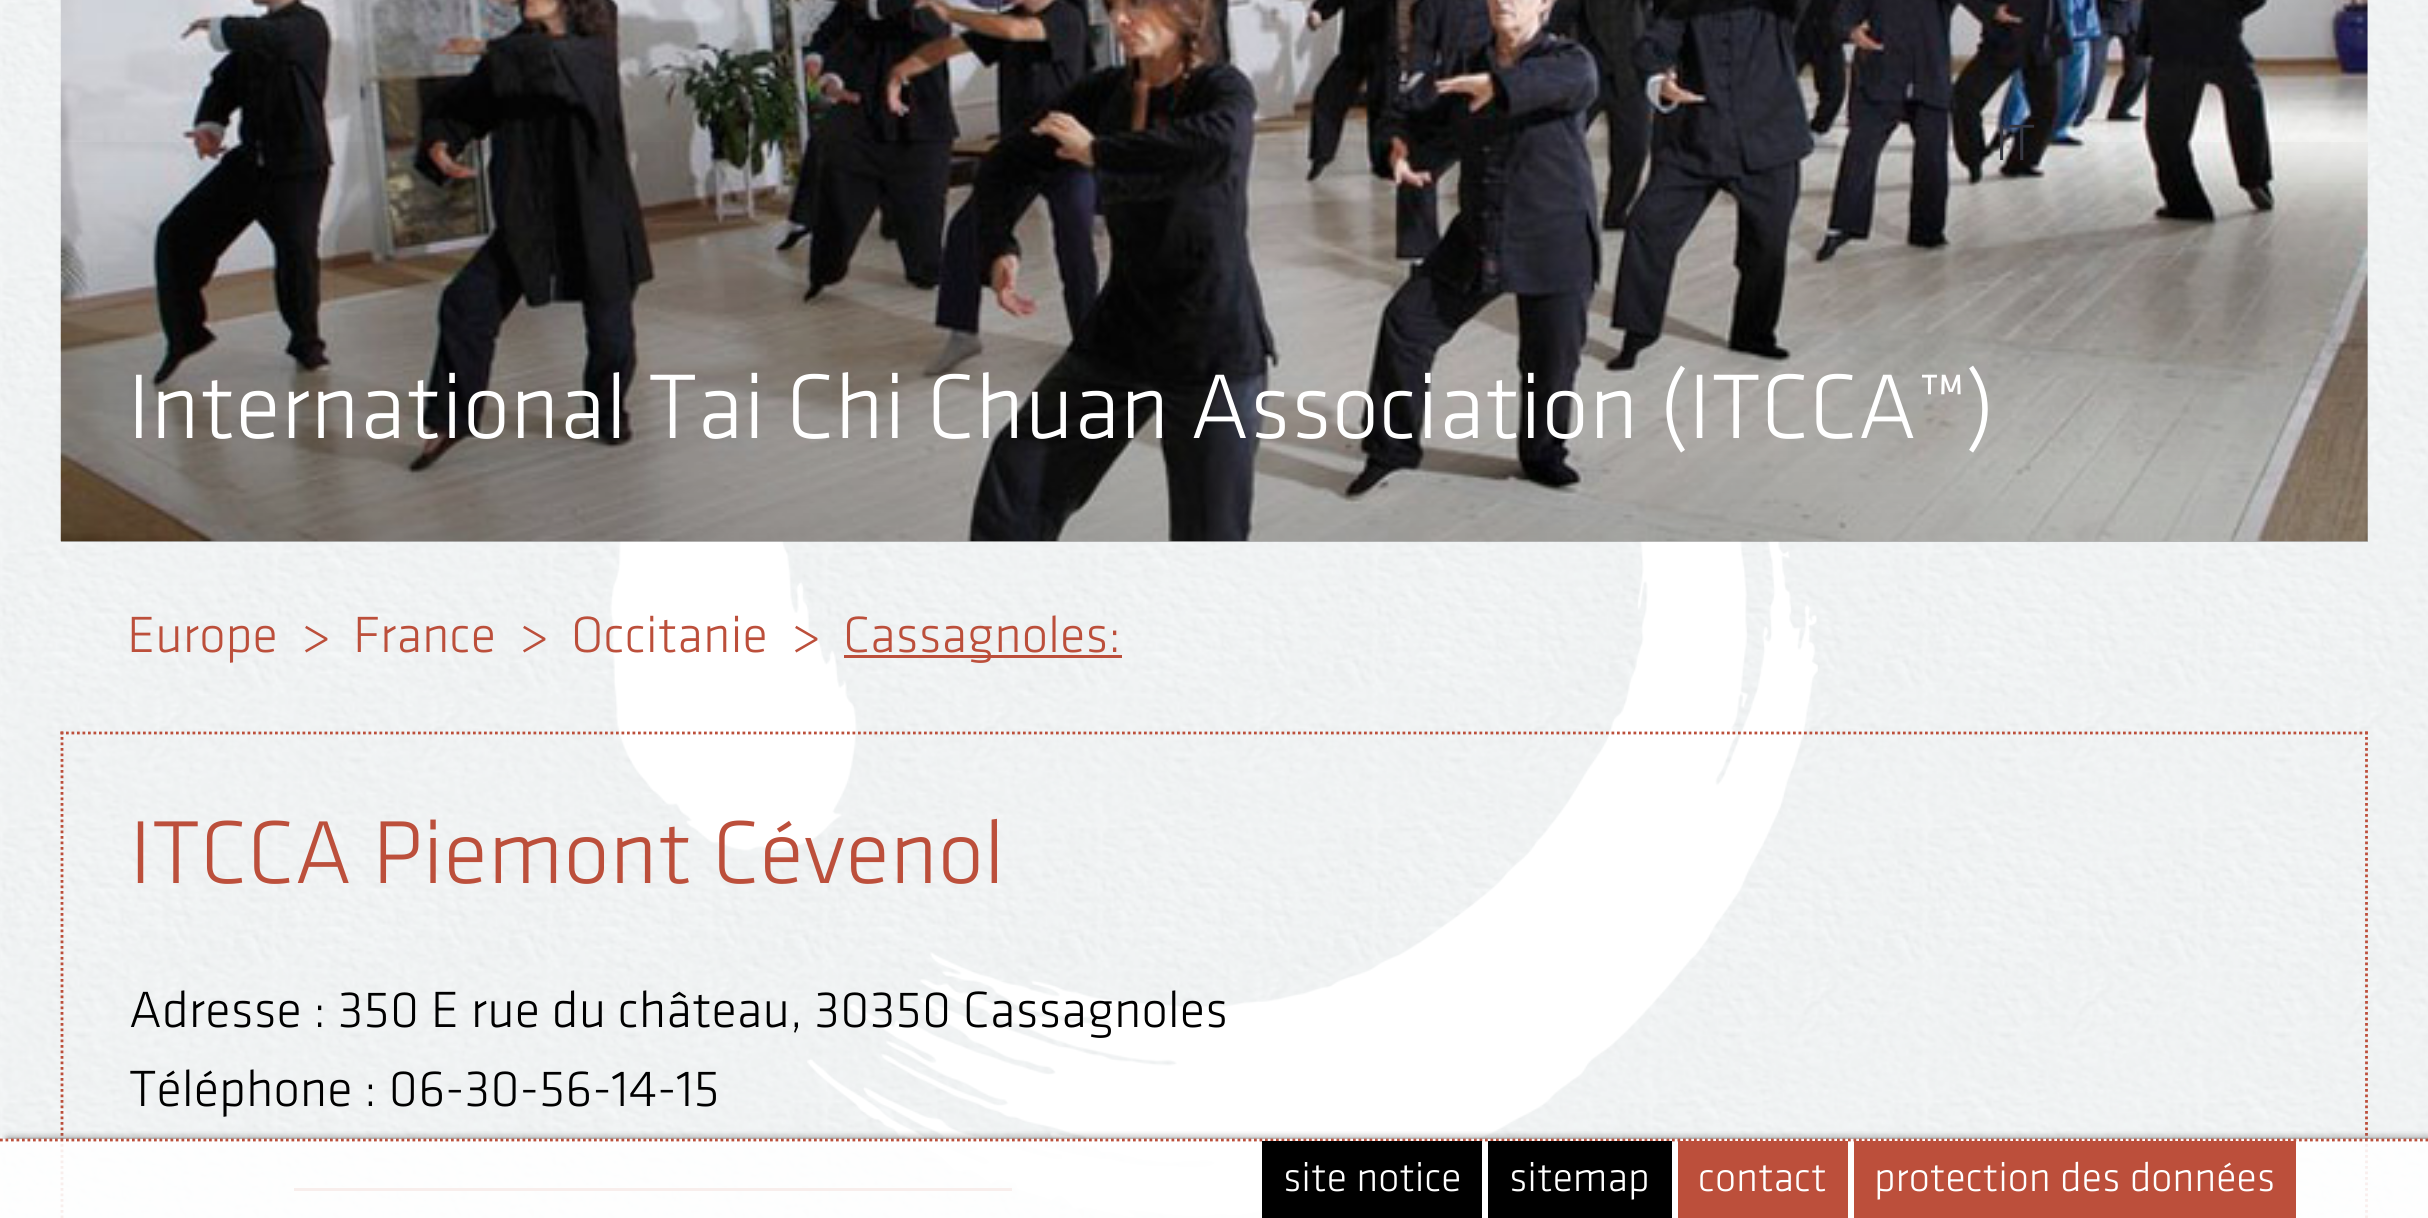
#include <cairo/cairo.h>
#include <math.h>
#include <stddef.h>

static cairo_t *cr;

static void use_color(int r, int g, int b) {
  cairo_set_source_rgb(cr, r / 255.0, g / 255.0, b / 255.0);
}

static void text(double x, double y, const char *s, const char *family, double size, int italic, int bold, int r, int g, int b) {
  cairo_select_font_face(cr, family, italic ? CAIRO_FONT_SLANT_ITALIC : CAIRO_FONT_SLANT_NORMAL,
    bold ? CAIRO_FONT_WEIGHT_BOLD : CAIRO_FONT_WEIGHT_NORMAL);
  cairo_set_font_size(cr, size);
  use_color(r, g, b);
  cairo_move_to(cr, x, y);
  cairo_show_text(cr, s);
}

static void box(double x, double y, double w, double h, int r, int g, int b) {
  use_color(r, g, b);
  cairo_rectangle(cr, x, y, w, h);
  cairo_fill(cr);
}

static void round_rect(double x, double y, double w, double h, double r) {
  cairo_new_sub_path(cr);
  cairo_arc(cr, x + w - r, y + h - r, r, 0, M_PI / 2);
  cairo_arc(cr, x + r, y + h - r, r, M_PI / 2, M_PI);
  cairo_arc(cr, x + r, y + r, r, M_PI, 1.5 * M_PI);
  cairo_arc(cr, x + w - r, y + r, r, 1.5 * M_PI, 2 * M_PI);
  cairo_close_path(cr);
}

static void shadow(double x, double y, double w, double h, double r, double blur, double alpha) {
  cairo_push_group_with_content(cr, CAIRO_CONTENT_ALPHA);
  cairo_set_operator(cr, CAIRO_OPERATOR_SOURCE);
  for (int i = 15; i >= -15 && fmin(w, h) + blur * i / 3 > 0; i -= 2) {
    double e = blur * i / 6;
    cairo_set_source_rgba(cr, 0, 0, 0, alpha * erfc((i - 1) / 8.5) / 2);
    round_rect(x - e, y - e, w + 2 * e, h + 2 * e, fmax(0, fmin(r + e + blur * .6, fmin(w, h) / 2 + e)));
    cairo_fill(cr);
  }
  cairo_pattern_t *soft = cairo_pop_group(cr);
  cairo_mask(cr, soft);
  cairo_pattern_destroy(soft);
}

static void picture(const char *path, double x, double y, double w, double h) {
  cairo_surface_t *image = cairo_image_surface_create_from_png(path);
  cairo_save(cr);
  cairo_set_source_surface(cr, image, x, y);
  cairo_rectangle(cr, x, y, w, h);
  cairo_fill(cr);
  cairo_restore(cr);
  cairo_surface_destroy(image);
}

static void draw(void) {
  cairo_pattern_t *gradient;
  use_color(255, 255, 255);
  cairo_paint(cr);
  picture("img_01.png", 0, 0, 2428, 1218);
  picture("img_02.png", 60, 0, 2308, 542);
  gradient = cairo_pattern_create_linear(1214, 104, 1214, 542);
  cairo_pattern_add_color_stop_rgba(gradient, 0, 0, 0, 0, 0);
  cairo_pattern_add_color_stop_rgba(gradient, 1, 0, 0, 0, 0.25);
  cairo_set_source(cr, gradient);
  cairo_pattern_destroy(gradient);
  cairo_rectangle(cr, 61, 142, 2307, 400);
  cairo_fill(cr);
  box(844, 655, 278, 3, 188, 79, 59);
  cairo_new_path(cr);
  cairo_move_to(cr, 60.5, 733);
  cairo_line_to(cr, 2368, 733);
  cairo_set_line_width(cr, 2.8);
  cairo_set_dash(cr, (double[]){2.75, 2.75}, 2, 0);
  cairo_stroke(cr);
  cairo_new_path(cr);
  cairo_move_to(cr, 2366.5, 731.5);
  cairo_line_to(cr, 2366.5, 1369.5);
  cairo_stroke(cr);
  cairo_new_path(cr);
  cairo_move_to(cr, 62, 731.5);
  cairo_line_to(cr, 62, 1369.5);
  cairo_stroke(cr);
  box(294, 1188, 718, 3, 188, 79, 59);
  cairo_save(cr);
  cairo_rectangle(cr, 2, 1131, 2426, 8);
  cairo_clip(cr);
  use_color(102, 102, 102);
  shadow(8, 1139, 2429, 79, 0, 4, 1);
  cairo_restore(cr);
  cairo_set_source_rgba(cr, 1, 1, 1, 0.9);
  cairo_rectangle(cr, 0, 1139, 2428, 79);
  cairo_fill(cr);
  cairo_new_path(cr);
  cairo_move_to(cr, 0, 1140);
  cairo_line_to(cr, 2428, 1140);
  use_color(188, 79, 59);
  cairo_stroke(cr);
  box(1262, 1141, 220, 77, 0, 0, 0);
  box(1488, 1141, 184, 77, 0, 0, 0);
  box(1678, 1141, 170, 77, 188, 79, 59);
  box(1854, 1141, 442, 77, 188, 79, 59);
  text(1995, 160, "IT", "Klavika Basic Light", 52.8, 0, 0, 54, 56, 66);
  text(127, 438, "International Tai Chi Chuan Association (ITCCA™)", "Klavika Basic Light", 95, 0, 0, 255, 255, 255);
  text(127, 652, "Europe", "Klavika Basic Light", 52.8, 0, 0, 188, 79, 59);
  text(301, 652, ">", "Klavika Basic Light", 52.8, 0, 0, 188, 79, 59);
  text(353, 652, "France", "Klavika Basic Light", 52.8, 0, 0, 188, 79, 59);
  text(519, 652, ">", "Klavika Basic Light", 52.8, 0, 0, 188, 79, 59);
  text(571, 652, "Occitanie", "Klavika Basic Light", 52.8, 0, 0, 188, 79, 59);
  text(791, 652, ">", "Klavika Basic Light", 52.8, 0, 0, 188, 79, 59);
  text(843, 652, "Cassagnoles:", "Klavika Basic Light", 52.8, 0, 0, 188, 79, 59);
  text(129, 883, "ITCCA Piemont Cévenol", "Klavika Basic Light", 92.5, 0, 0, 188, 79, 59);
  text(129, 1027, "Adresse : 350 E rue du château, 30350 Cassagnoles", "Klavika Basic Light", 52.8, 0, 0, 0, 0, 0);
  text(129, 1106, "Téléphone : 06-30-56-14-15", "Klavika Basic Light", 52.8, 0, 0, 0, 0, 0);
  text(1283, 1191, "site notice", "Klavika Basic Light", 42.25, 0, 0, 255, 255, 255);
  text(1509, 1191, "sitemap", "Klavika Basic Light", 42.25, 0, 0, 255, 255, 255);
  text(1698, 1191, "contact", "Klavika Basic Light", 42.25, 0, 0, 255, 255, 255);
  text(1874, 1191, "protection des données", "Klavika Basic Light", 42.25, 0, 0, 255, 255, 255);
}

int main(void) {
  cairo_surface_t *surface = cairo_image_surface_create(CAIRO_FORMAT_RGB24, 2428, 1218);
  cr = cairo_create(surface);
  cairo_font_options_t *options = cairo_font_options_create();
  cairo_font_options_set_hint_metrics(options, CAIRO_HINT_METRICS_OFF);
  cairo_font_options_set_hint_style(options, CAIRO_HINT_STYLE_NONE);
  cairo_set_font_options(cr, options);
  cairo_set_miter_limit(cr, 4);
  draw();
  cairo_surface_write_to_png(surface, "out.png");
  cairo_font_options_destroy(options);
  cairo_destroy(cr);
  cairo_surface_destroy(surface);
  return 0;
}
